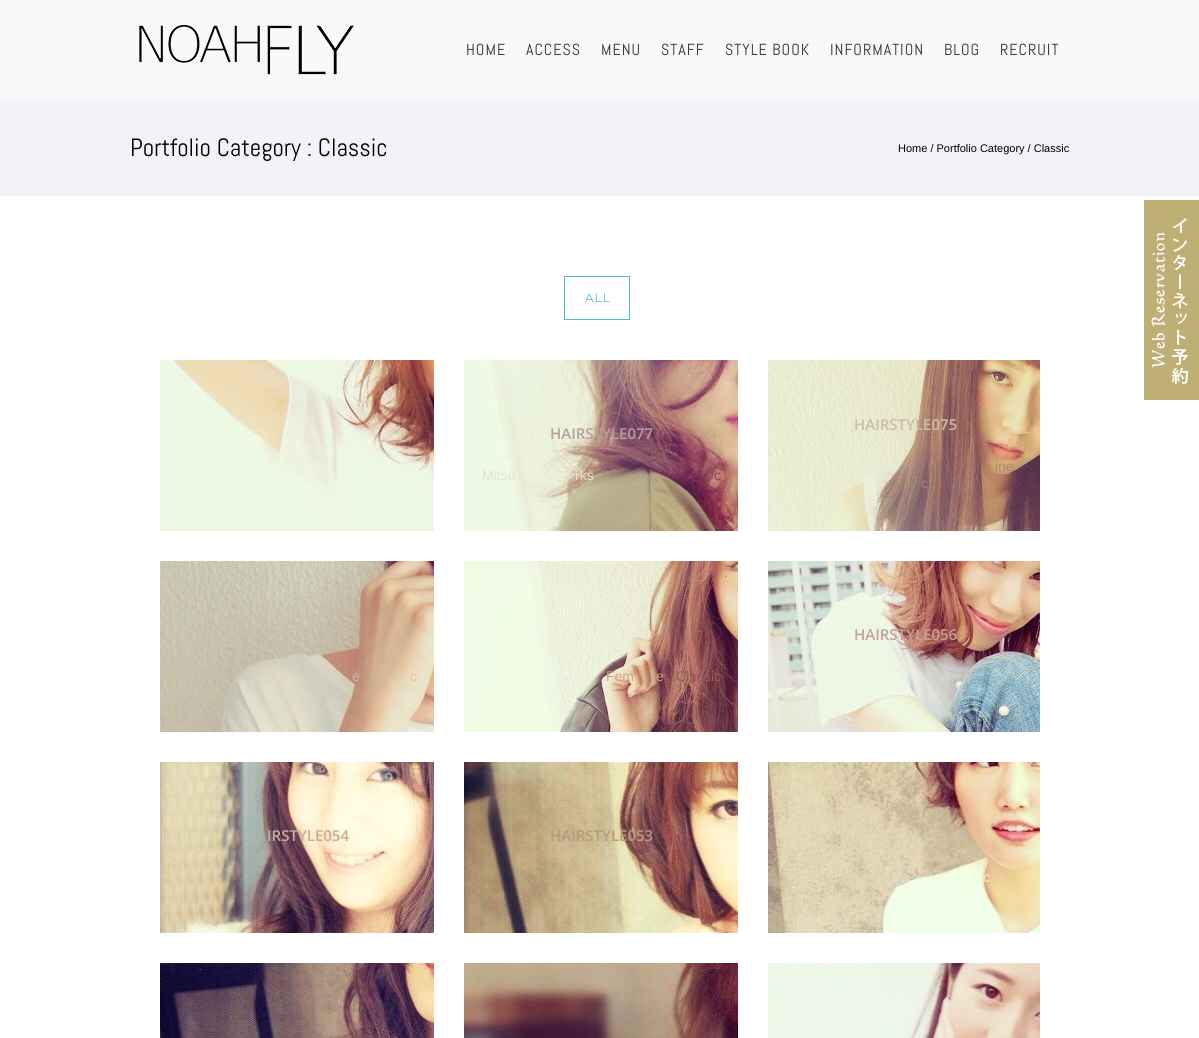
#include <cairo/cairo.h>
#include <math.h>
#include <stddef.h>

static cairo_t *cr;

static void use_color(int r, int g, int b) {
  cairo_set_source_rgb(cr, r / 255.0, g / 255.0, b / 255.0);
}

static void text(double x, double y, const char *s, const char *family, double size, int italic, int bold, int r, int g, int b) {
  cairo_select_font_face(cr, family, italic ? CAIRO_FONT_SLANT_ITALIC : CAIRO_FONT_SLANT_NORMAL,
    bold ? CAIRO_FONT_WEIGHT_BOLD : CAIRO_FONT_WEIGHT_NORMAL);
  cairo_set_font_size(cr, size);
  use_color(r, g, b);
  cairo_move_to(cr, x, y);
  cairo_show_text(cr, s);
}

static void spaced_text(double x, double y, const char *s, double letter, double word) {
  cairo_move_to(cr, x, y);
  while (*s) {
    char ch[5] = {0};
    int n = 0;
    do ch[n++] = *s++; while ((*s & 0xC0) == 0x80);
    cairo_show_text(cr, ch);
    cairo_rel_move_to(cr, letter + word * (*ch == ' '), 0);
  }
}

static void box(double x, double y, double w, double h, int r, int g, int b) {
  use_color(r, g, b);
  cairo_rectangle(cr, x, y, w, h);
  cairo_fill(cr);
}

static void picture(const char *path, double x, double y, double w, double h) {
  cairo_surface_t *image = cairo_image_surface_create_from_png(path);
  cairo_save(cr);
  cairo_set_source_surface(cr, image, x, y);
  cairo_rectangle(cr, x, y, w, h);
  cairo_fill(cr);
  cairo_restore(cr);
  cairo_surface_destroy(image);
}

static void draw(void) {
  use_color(255, 255, 255);
  cairo_paint(cr);
  box(0, 0, 1199, 100, 249, 249, 249);
  picture("img_01.png", 139, 25, 215, 50);
  picture("img_02.png", 1144, 200, 55, 200);
  box(0, 100, 1199, 96, 242, 243, 248);
  cairo_rectangle(cr, 564.5, 276.5, 65, 43);
  use_color(84, 186, 206);
  cairo_set_line_width(cr, 1);
  cairo_stroke(cr);
  picture("img_03.png", 160, 360, 274, 171);
  picture("img_04.png", 464, 360, 274, 171);
  picture("img_05.png", 768, 360, 272, 171);
  picture("img_06.png", 768, 561, 272, 171);
  picture("img_07.png", 160, 561, 274, 171);
  picture("img_08.png", 464, 561, 274, 171);
  picture("img_09.png", 160, 762, 274, 171);
  picture("img_10.png", 464, 762, 274, 171);
  picture("img_11.png", 768, 762, 272, 171);
  picture("img_12.png", 160, 963, 274, 75);
  picture("img_13.png", 464, 963, 274, 75);
  picture("img_14.png", 768, 963, 272, 75);
  cairo_select_font_face(cr, "Abel", CAIRO_FONT_SLANT_NORMAL, CAIRO_FONT_WEIGHT_NORMAL);
  cairo_set_font_size(cr, 16);
  use_color(51, 51, 51);
  spaced_text(466, 55, "HOME", 1, 0);
  spaced_text(526, 55, "ACCESS", 1, 0);
  spaced_text(601, 55, "MENU", 1, 0);
  spaced_text(661, 55, "STAFF", 1, 0);
  spaced_text(725, 55, "STYLE BOOK", 1, 0);
  spaced_text(830, 55, "INFORMATION", 1, 0);
  spaced_text(944, 55, "BLOG", 1, 0);
  spaced_text(1000, 55, "RECRUIT", 1, 0);
  text(130, 156, "Portfolio Category : Classic", "Abel", 25, 0, 0, 0, 0, 0);
  text(898, 152, "Home / Portfolio Category / Classic", "Liberation Sans", 11, 0, 0, 0, 0, 0);
  cairo_select_font_face(cr, "Montserrat", CAIRO_FONT_SLANT_NORMAL, CAIRO_FONT_WEIGHT_NORMAL);
  cairo_set_font_size(cr, 12);
  use_color(84, 186, 206);
  spaced_text(585, 302, "ALL", 1, 0);
  text(550, 439, "HAIRSTYLE077", "Open Sans SemiBold", 15, 0, 0, 184, 159, 158);
  text(482, 480, "Mitsu", "Liberation Sans", 14, 0, 0, 227, 228, 206);
  text(575, 480, "rks", "Liberation Sans", 14, 0, 0, 227, 228, 206);
  text(714, 480, "c", "Liberation Sans", 14, 0, 0, 139, 67, 90);
  text(854, 430, "HAIRSTYLE075", "Open Sans SemiBold", 15, 0, 0, 206, 188, 166);
  text(995, 471, "ine", "Liberation Sans", 14, 0, 0, 179, 132, 107);
  text(921, 488, "c", "Liberation Sans", 14, 0, 0, 164, 133, 124);
  text(854, 640, "HAIRSTYLE056", "Open Sans SemiBold", 15, 0, 0, 197, 160, 150);
  text(352, 681, "e", "Liberation Sans", 14, 0, 0, 206, 188, 166);
  text(410, 681, "c", "Liberation Sans", 14, 0, 0, 224, 199, 167);
  text(606, 681, "Fem", "Liberation Sans", 14, 0, 0, 201, 165, 141);
  text(656, 681, "e", "Liberation Sans", 14, 0, 0, 201, 165, 141);
  text(676, 681, "Classic", "Liberation Sans", 14, 0, 0, 152, 92, 91);
  text(267, 841, "IRSTYLE054", "Open Sans SemiBold", 15, 0, 0, 192, 174, 161);
  text(550, 841, "HAIRSTYLE053", "Open Sans SemiBold", 15, 0, 0, 184, 155, 126);
  text(983, 882, "c", "Liberation Sans", 14, 0, 0, 239, 244, 216);
}

int main(void) {
  cairo_surface_t *surface = cairo_image_surface_create(CAIRO_FORMAT_RGB24, 1199, 1038);
  cr = cairo_create(surface);
  cairo_font_options_t *options = cairo_font_options_create();
  cairo_font_options_set_hint_metrics(options, CAIRO_HINT_METRICS_OFF);
  cairo_font_options_set_hint_style(options, CAIRO_HINT_STYLE_NONE);
  cairo_set_font_options(cr, options);
  cairo_set_miter_limit(cr, 4);
  draw();
  cairo_surface_write_to_png(surface, "out.png");
  cairo_font_options_destroy(options);
  cairo_destroy(cr);
  cairo_surface_destroy(surface);
  return 0;
}
